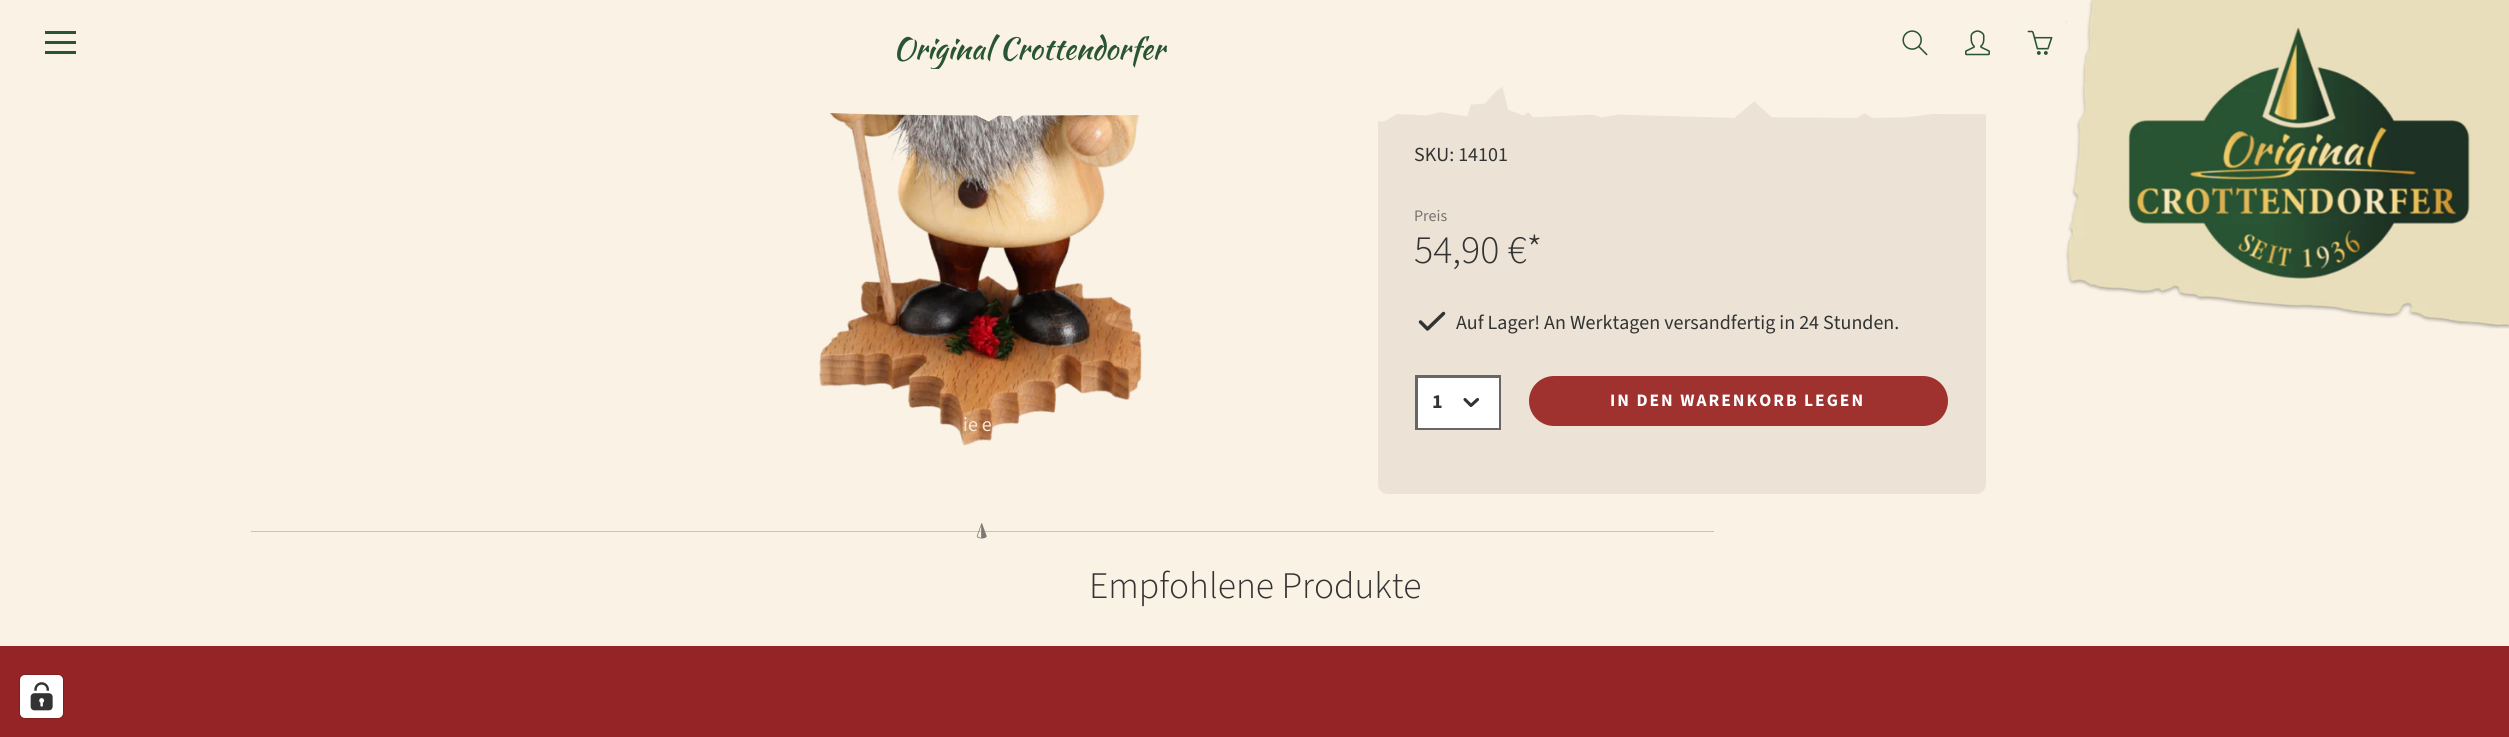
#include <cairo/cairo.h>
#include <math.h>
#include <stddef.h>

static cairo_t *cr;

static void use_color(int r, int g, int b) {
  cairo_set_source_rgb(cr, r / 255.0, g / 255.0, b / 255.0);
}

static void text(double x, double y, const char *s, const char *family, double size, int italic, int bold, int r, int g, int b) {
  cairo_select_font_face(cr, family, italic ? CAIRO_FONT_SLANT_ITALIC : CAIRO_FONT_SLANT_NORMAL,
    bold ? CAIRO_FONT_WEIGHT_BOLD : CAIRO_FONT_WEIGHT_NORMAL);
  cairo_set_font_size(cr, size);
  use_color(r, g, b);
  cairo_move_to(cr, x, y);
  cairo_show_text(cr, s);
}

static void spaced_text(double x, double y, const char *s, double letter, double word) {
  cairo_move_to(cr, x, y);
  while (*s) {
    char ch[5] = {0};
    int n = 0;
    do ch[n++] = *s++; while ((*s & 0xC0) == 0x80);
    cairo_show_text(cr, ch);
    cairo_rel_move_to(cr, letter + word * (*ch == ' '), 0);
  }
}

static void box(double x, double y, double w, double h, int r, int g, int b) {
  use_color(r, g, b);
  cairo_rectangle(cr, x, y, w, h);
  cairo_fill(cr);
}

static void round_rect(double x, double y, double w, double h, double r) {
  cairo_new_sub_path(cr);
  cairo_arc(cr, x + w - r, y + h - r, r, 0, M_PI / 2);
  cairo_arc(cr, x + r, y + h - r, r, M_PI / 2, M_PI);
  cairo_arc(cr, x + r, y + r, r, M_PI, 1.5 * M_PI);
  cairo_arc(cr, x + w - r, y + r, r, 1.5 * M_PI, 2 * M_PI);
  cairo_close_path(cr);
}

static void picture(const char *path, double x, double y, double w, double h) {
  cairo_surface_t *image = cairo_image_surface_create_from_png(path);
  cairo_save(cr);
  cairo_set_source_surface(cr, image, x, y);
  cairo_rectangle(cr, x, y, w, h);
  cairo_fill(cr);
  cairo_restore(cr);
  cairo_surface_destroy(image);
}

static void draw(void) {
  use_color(250, 242, 229);
  cairo_paint(cr);
  use_color(236, 227, 214);
  round_rect(1378, -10, 608, 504, 10);
  cairo_fill(cr);
  box(1378, 0, 608, 85, 250, 242, 229);
  box(45, 41, 31, 3, 42, 85, 52);
  box(45, 31, 31, 3, 42, 85, 52);
  box(45, 51, 31, 3, 42, 85, 52);
  picture("img_01.png", 1902, 30, 26, 26);
  picture("img_02.png", 1965, 30, 25, 26);
  picture("img_03.png", 2027, 30, 26, 25);
  picture("img_04.png", 2065, 0, 444, 329);
  cairo_new_path(cr);
  cairo_move_to(cr, 1443.5, 313.5);
  cairo_line_to(cr, 1427.5, 329);
  cairo_line_to(cr, 1420.5, 322);
  use_color(51, 51, 51);
  cairo_set_line_width(cr, 3.5);
  cairo_set_line_cap(cr, CAIRO_LINE_CAP_ROUND);
  cairo_set_line_join(cr, CAIRO_LINE_JOIN_ROUND);
  cairo_stroke(cr);
  cairo_rectangle(cr, 1416.5, 376.5, 83, 52);
  use_color(102, 102, 102);
  cairo_set_line_width(cr, 3);
  cairo_set_line_cap(cr, CAIRO_LINE_CAP_BUTT);
  cairo_set_line_join(cr, CAIRO_LINE_JOIN_MITER);
  cairo_stroke(cr);
  box(1418, 378, 81, 50, 255, 255, 255);
  cairo_new_path(cr);
  cairo_move_to(cr, 1465, 399.5);
  cairo_line_to(cr, 1471, 405.5);
  cairo_line_to(cr, 1477.5, 399.5);
  use_color(51, 51, 51);
  cairo_set_line_width(cr, 3.1);
  cairo_set_line_cap(cr, CAIRO_LINE_CAP_ROUND);
  cairo_set_line_join(cr, CAIRO_LINE_JOIN_ROUND);
  cairo_stroke(cr);
  use_color(159, 49, 47);
  round_rect(1529, 376, 419, 50, 25);
  cairo_fill(cr);
  picture("img_06.png", 819, 98, 323, 348);
  box(251, 531, 1463, 1, 202, 194, 179);
  picture("img_07.png", 976, 523, 11, 16);
  box(0, 646, 2509, 91, 149, 36, 38);
  round_rect(19.5, 674.5, 44, 44, 5.5);
  use_color(127, 31, 32);
  cairo_set_line_width(cr, 1);
  cairo_set_line_cap(cr, CAIRO_LINE_CAP_BUTT);
  cairo_set_line_join(cr, CAIRO_LINE_JOIN_MITER);
  cairo_stroke(cr);
  use_color(255, 255, 255);
  round_rect(20, 675, 43, 43, 5);
  cairo_fill(cr);
  picture("img_08.png", 30, 682, 23, 29);
  text(893, 59, "Original Crottendorfer", "Kaushan Script", 30, 0, 0, 42, 85, 52);
  picture("img_05.png", 826, 69, 1160, 53);
  text(1414, 161, "SKU: 14101", "Source Sans Pro", 20, 0, 0, 51, 51, 51);
  text(1414, 221, "Preis", "Source Sans Pro", 16, 0, 0, 118, 114, 110);
  text(1414, 263, "54,90 €*", "Source Sans Pro Light", 40, 0, 0, 51, 51, 51);
  text(1456, 329, "Auf Lager! An Werktagen versandfertig in 24 Stunden.", "Source Sans Pro", 20, 0, 0, 51, 51, 51);
  text(1432, 408, "1", "Source Sans Pro", 20, 0, 1, 51, 51, 51);
  cairo_set_font_size(cr, 17.5);
  use_color(255, 255, 255);
  spaced_text(1610, 406, "IN DEN WARENKORB LEGEN", 2, 0);
  text(963, 431, "ie e", "Source Sans Pro", 20, 0, 0, 244, 231, 215);
  text(1089, 598, "Empfohlene Produkte", "Source Sans Pro Light", 37.5, 0, 0, 51, 51, 51);
}

int main(void) {
  cairo_surface_t *surface = cairo_image_surface_create(CAIRO_FORMAT_RGB24, 2509, 737);
  cr = cairo_create(surface);
  cairo_font_options_t *options = cairo_font_options_create();
  cairo_font_options_set_hint_metrics(options, CAIRO_HINT_METRICS_OFF);
  cairo_font_options_set_hint_style(options, CAIRO_HINT_STYLE_NONE);
  cairo_set_font_options(cr, options);
  cairo_set_miter_limit(cr, 4);
  draw();
  cairo_surface_write_to_png(surface, "out.png");
  cairo_font_options_destroy(options);
  cairo_destroy(cr);
  cairo_surface_destroy(surface);
  return 0;
}
